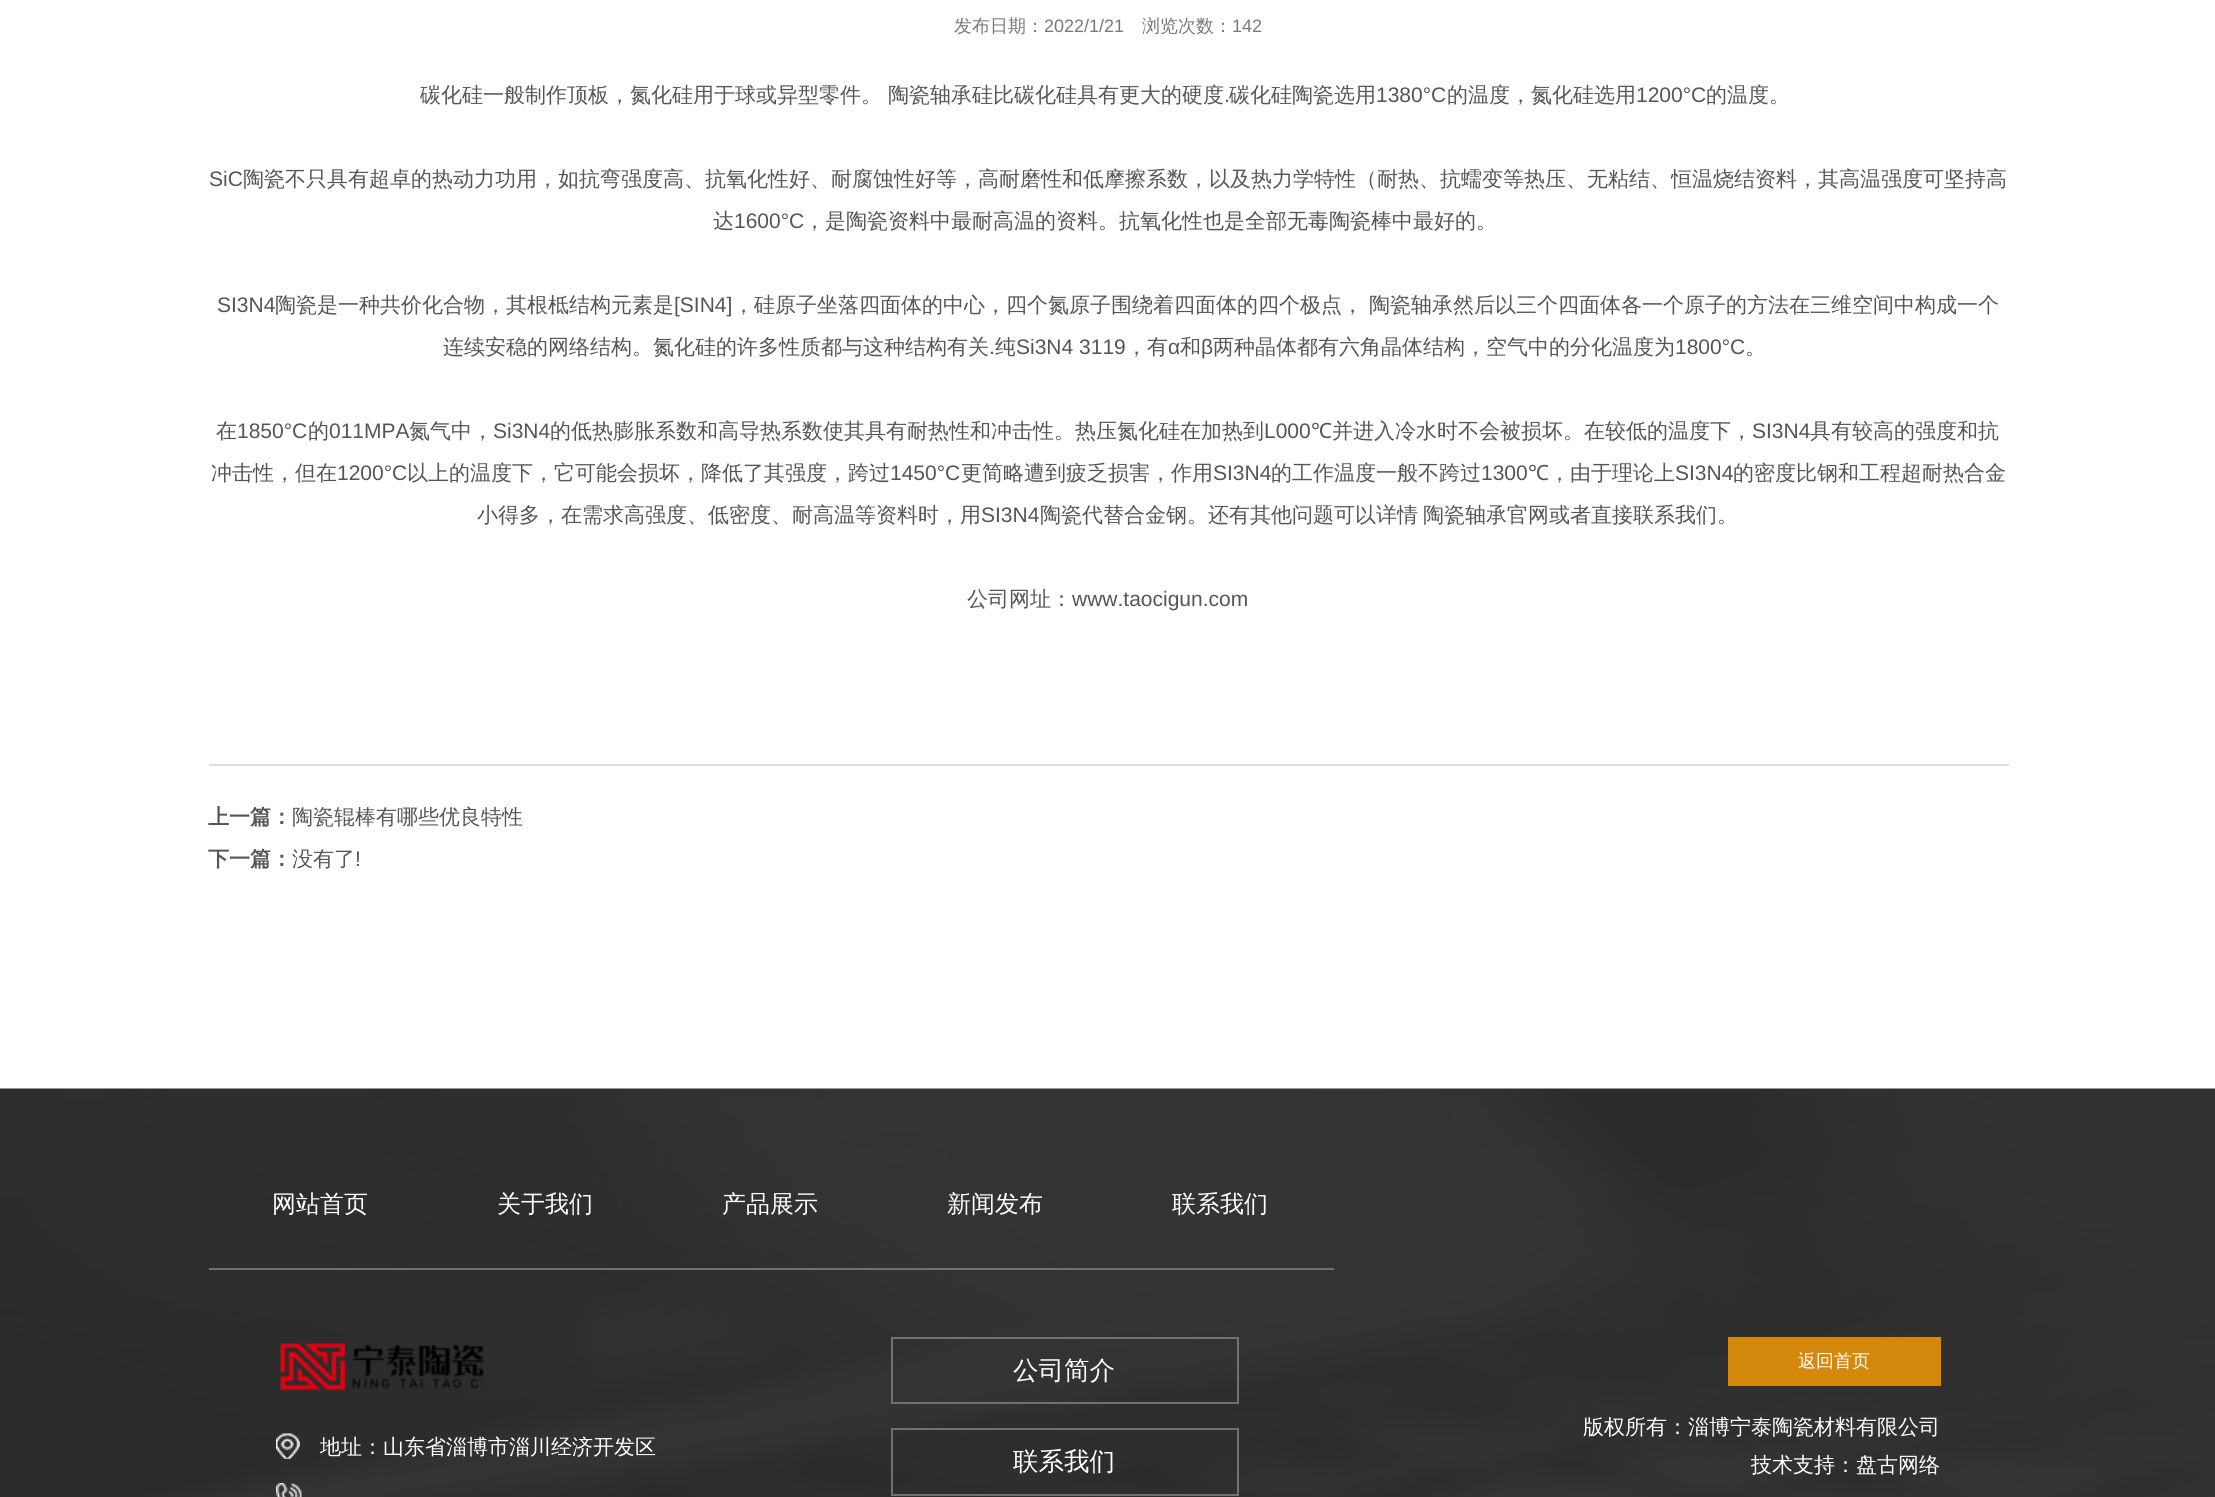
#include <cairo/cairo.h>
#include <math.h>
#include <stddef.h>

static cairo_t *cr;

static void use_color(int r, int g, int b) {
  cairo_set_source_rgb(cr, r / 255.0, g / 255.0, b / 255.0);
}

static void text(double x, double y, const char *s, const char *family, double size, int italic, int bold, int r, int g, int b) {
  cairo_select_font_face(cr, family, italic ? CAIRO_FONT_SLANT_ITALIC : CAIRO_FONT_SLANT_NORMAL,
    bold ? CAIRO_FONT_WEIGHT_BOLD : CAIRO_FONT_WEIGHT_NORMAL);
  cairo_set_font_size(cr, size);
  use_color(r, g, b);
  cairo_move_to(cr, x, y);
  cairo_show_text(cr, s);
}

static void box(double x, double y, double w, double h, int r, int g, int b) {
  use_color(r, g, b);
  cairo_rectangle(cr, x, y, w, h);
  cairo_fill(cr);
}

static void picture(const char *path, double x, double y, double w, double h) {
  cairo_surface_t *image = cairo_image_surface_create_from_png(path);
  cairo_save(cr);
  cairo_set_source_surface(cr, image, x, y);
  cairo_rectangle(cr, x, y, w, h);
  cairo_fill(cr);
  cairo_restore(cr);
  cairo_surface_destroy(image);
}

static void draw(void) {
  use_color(255, 255, 255);
  cairo_paint(cr);
  box(209, 764, 1800, 2, 221, 221, 221);
  picture("img_01.png", 0, 1088, 2215, 409);
  box(209, 1268, 1125, 2, 113, 113, 113);
  picture("img_02.png", 280, 1343, 204, 48);
  picture("img_03.png", 276, 1433, 24, 26);
  picture("img_04.png", 276, 1483, 26, 14);
  cairo_rectangle(cr, 892, 1338, 346, 65);
  cairo_stroke(cr);
  cairo_rectangle(cr, 892, 1429, 346, 66);
  cairo_stroke(cr);
  box(1728, 1337, 213, 49, 212, 137, 13);
  text(954, 32, "发布日期：", "WenQuanYi Zen Hei Medium", 18, 0, 0, 121, 121, 121);
  text(1044, 32, "2022/1/21", "Liberation Sans", 18, 0, 0, 121, 121, 121);
  text(1142, 32, "浏览次数：", "WenQuanYi Zen Hei Medium", 18, 0, 0, 121, 121, 121);
  text(1232, 32, "142", "Liberation Sans", 18, 0, 0, 121, 121, 121);
  text(420, 102, "碳化硅一般制作顶板，氮化硅用于球或异型零件。", "WenQuanYi Zen Hei Medium", 21, 0, 0, 85, 85, 85);
  text(888, 102, "陶瓷轴承硅比碳化硅具有更大的硬度", "WenQuanYi Zen Hei Medium", 21, 0, 0, 85, 85, 85);
  text(1224, 102, ".", "Liberation Sans", 21, 0, 0, 85, 85, 85);
  text(1229, 102, "碳化硅陶瓷选用", "WenQuanYi Zen Hei Medium", 21, 0, 0, 85, 85, 85);
  text(1376, 102, "1380°C", "Liberation Sans", 21, 0, 0, 85, 85, 85);
  text(1447, 102, "的温度，氮化硅选用", "WenQuanYi Zen Hei Medium", 21, 0, 0, 85, 85, 85);
  text(1636, 102, "1200°C", "Liberation Sans", 21, 0, 0, 85, 85, 85);
  text(1706, 102, "的温度。", "WenQuanYi Zen Hei Medium", 21, 0, 0, 85, 85, 85);
  text(209, 186, "SiC", "Liberation Sans", 21, 0, 0, 85, 85, 85);
  text(243, 186, "陶瓷不只具有超卓的热动力功用，如抗弯强度高、抗氧化性好、耐腐蚀性好等，高耐磨性和低摩擦系数，以及热力学特性（耐热、抗蠕变等热压、无粘结、恒温烧结资料，其高温强度可坚持高", "WenQuanYi Zen Hei Medium", 21, 0, 0, 85, 85, 85);
  text(713, 228, "达", "WenQuanYi Zen Hei Medium", 21, 0, 0, 85, 85, 85);
  text(734, 228, "1600°C", "Liberation Sans", 21, 0, 0, 85, 85, 85);
  text(804, 228, "，是陶瓷资料中最耐高温的资料。抗氧化性也是全部无毒陶瓷棒中最好的。", "WenQuanYi Zen Hei Medium", 21, 0, 0, 85, 85, 85);
  text(217, 312, "SI3N4", "Liberation Sans", 21, 0, 0, 85, 85, 85);
  text(275, 312, "陶瓷是一种共价化合物，其根柢结构元素是", "WenQuanYi Zen Hei Medium", 21, 0, 0, 85, 85, 85);
  text(674, 312, "[SIN4]", "Liberation Sans", 21, 0, 0, 85, 85, 85);
  text(733, 312, "，硅原子坐落四面体的中心，四个氮原子围绕着四面体的四个极点，", "WenQuanYi Zen Hei Medium", 21, 0, 0, 85, 85, 85);
  text(1369, 312, "陶瓷轴承然后以三个四面体各一个原子的方法在三维空间中构成一个", "WenQuanYi Zen Hei Medium", 21, 0, 0, 85, 85, 85);
  text(443, 354, "连续安稳的网络结构。氮化硅的许多性质都与这种结构有关", "WenQuanYi Zen Hei Medium", 21, 0, 0, 85, 85, 85);
  text(989, 354, ".", "Liberation Sans", 21, 0, 0, 85, 85, 85);
  text(995, 354, "纯", "WenQuanYi Zen Hei Medium", 21, 0, 0, 85, 85, 85);
  text(1016, 354, "Si3N4 3119", "Liberation Sans", 21, 0, 0, 85, 85, 85);
  text(1126, 354, "，有", "WenQuanYi Zen Hei Medium", 21, 0, 0, 85, 85, 85);
  text(1168, 354, "α", "Liberation Sans", 21, 0, 0, 85, 85, 85);
  text(1180, 354, "和", "WenQuanYi Zen Hei Medium", 21, 0, 0, 85, 85, 85);
  text(1201, 354, "β", "Liberation Sans", 21, 0, 0, 85, 85, 85);
  text(1213, 354, "两种晶体都有六角晶体结构，空气中的分化温度为", "WenQuanYi Zen Hei Medium", 21, 0, 0, 85, 85, 85);
  text(1675, 354, "1800°C", "Liberation Sans", 21, 0, 0, 85, 85, 85);
  text(1745, 354, "。", "WenQuanYi Zen Hei Medium", 21, 0, 0, 85, 85, 85);
  text(216, 438, "在", "WenQuanYi Zen Hei Medium", 21, 0, 0, 85, 85, 85);
  text(237, 438, "1850°C", "Liberation Sans", 21, 0, 0, 85, 85, 85);
  text(308, 438, "的", "WenQuanYi Zen Hei Medium", 21, 0, 0, 85, 85, 85);
  text(329, 438, "011MPA", "Liberation Sans", 21, 0, 0, 85, 85, 85);
  text(409, 438, "氮气中，", "WenQuanYi Zen Hei Medium", 21, 0, 0, 85, 85, 85);
  text(493, 438, "Si3N4", "Liberation Sans", 21, 0, 0, 85, 85, 85);
  text(550, 438, "的低热膨胀系数和高导热系数使其具有耐热性和冲击性。热压氮化硅在加热到", "WenQuanYi Zen Hei Medium", 21, 0, 0, 85, 85, 85);
  text(1264, 438, "L000", "Liberation Sans", 21, 0, 0, 85, 85, 85);
  text(1311, 438, "℃", "Noto Sans", 21, 0, 0, 85, 85, 85);
  text(1332, 438, "并进入冷水时不会被损坏。在较低的温度下，", "WenQuanYi Zen Hei Medium", 21, 0, 0, 85, 85, 85);
  text(1752, 438, "SI3N4", "Liberation Sans", 21, 0, 0, 85, 85, 85);
  text(1810, 438, "具有较高的强度和抗", "WenQuanYi Zen Hei Medium", 21, 0, 0, 85, 85, 85);
  text(211, 480, "冲击性，但在", "WenQuanYi Zen Hei Medium", 21, 0, 0, 85, 85, 85);
  text(337, 480, "1200°C", "Liberation Sans", 21, 0, 0, 85, 85, 85);
  text(407, 480, "以上的温度下，它可能会损坏，降低了其强度，跨过", "WenQuanYi Zen Hei Medium", 21, 0, 0, 85, 85, 85);
  text(890, 480, "1450°C", "Liberation Sans", 21, 0, 0, 85, 85, 85);
  text(961, 480, "更简略遭到疲乏损害，作用", "WenQuanYi Zen Hei Medium", 21, 0, 0, 85, 85, 85);
  text(1213, 480, "SI3N4", "Liberation Sans", 21, 0, 0, 85, 85, 85);
  text(1271, 480, "的工作温度一般不跨过", "WenQuanYi Zen Hei Medium", 21, 0, 0, 85, 85, 85);
  text(1481, 480, "1300", "Liberation Sans", 21, 0, 0, 85, 85, 85);
  text(1528, 480, "℃", "Noto Sans", 21, 0, 0, 85, 85, 85);
  text(1549, 480, "，由于理论上", "WenQuanYi Zen Hei Medium", 21, 0, 0, 85, 85, 85);
  text(1675, 480, "SI3N4", "Liberation Sans", 21, 0, 0, 85, 85, 85);
  text(1733, 480, "的密度比钢和工程超耐热合金", "WenQuanYi Zen Hei Medium", 21, 0, 0, 85, 85, 85);
  text(477, 522, "小得多，在需求高强度、低密度、耐高温等资料时，用", "WenQuanYi Zen Hei Medium", 21, 0, 0, 85, 85, 85);
  text(981, 522, "SI3N4", "Liberation Sans", 21, 0, 0, 85, 85, 85);
  text(1040, 522, "陶瓷代替合金钢。还有其他问题可以详情", "WenQuanYi Zen Hei Medium", 21, 0, 0, 85, 85, 85);
  text(1423, 522, "陶瓷轴承官网或者直接联系我们。", "WenQuanYi Zen Hei Medium", 21, 0, 0, 85, 85, 85);
  text(967, 606, "公司网址：", "WenQuanYi Zen Hei Medium", 21, 0, 0, 85, 85, 85);
  text(1072, 606, "www.taocigun.com", "Liberation Sans", 21, 0, 0, 85, 85, 85);
  text(208, 824, "上一篇：", "WenQuanYi Zen Hei", 21, 0, 1, 85, 85, 85);
  text(292, 824, "陶瓷辊棒有哪些优良特性", "WenQuanYi Zen Hei Medium", 21, 0, 0, 85, 85, 85);
  text(208, 866, "下一篇：", "WenQuanYi Zen Hei", 21, 0, 1, 85, 85, 85);
  text(292, 866, "没有了", "WenQuanYi Zen Hei Medium", 21, 0, 0, 85, 85, 85);
  text(355, 866, "!", "Liberation Sans", 21, 0, 0, 85, 85, 85);
  text(272, 1212, "网站首页", "WenQuanYi Zen Hei Medium", 24, 0, 0, 255, 255, 255);
  text(497, 1212, "关于我们", "WenQuanYi Zen Hei Medium", 24, 0, 0, 255, 255, 255);
  text(722, 1212, "产品展示", "WenQuanYi Zen Hei Medium", 24, 0, 0, 255, 255, 255);
  text(947, 1212, "新闻发布", "WenQuanYi Zen Hei Medium", 24, 0, 0, 255, 255, 255);
  text(1172, 1212, "联系我们", "WenQuanYi Zen Hei Medium", 24, 0, 0, 255, 255, 255);
  text(320, 1454, "地址：山东省淄博市淄川经济开发区", "WenQuanYi Zen Hei Medium", 21, 0, 0, 255, 255, 255);
  text(1013, 1379, "公司简介", "WenQuanYi Zen Hei Medium", 25.5, 0, 0, 255, 255, 255);
  text(1013, 1470, "联系我们", "WenQuanYi Zen Hei Medium", 25.5, 0, 0, 255, 255, 255);
  text(1798, 1367, "返回首页", "WenQuanYi Zen Hei Medium", 18, 0, 0, 255, 255, 255);
  text(1583, 1434, "版权所有：淄博宁泰陶瓷材料有限公司", "WenQuanYi Zen Hei Medium", 21, 0, 0, 255, 255, 255);
  text(1751, 1472, "技术支持：盘古网络", "WenQuanYi Zen Hei Medium", 21, 0, 0, 255, 255, 255);
}

int main(void) {
  cairo_surface_t *surface = cairo_image_surface_create(CAIRO_FORMAT_RGB24, 2215, 1497);
  cr = cairo_create(surface);
  cairo_font_options_t *options = cairo_font_options_create();
  cairo_font_options_set_hint_metrics(options, CAIRO_HINT_METRICS_OFF);
  cairo_font_options_set_hint_style(options, CAIRO_HINT_STYLE_NONE);
  cairo_set_font_options(cr, options);
  cairo_set_miter_limit(cr, 4);
  draw();
  cairo_surface_write_to_png(surface, "out.png");
  cairo_font_options_destroy(options);
  cairo_destroy(cr);
  cairo_surface_destroy(surface);
  return 0;
}
